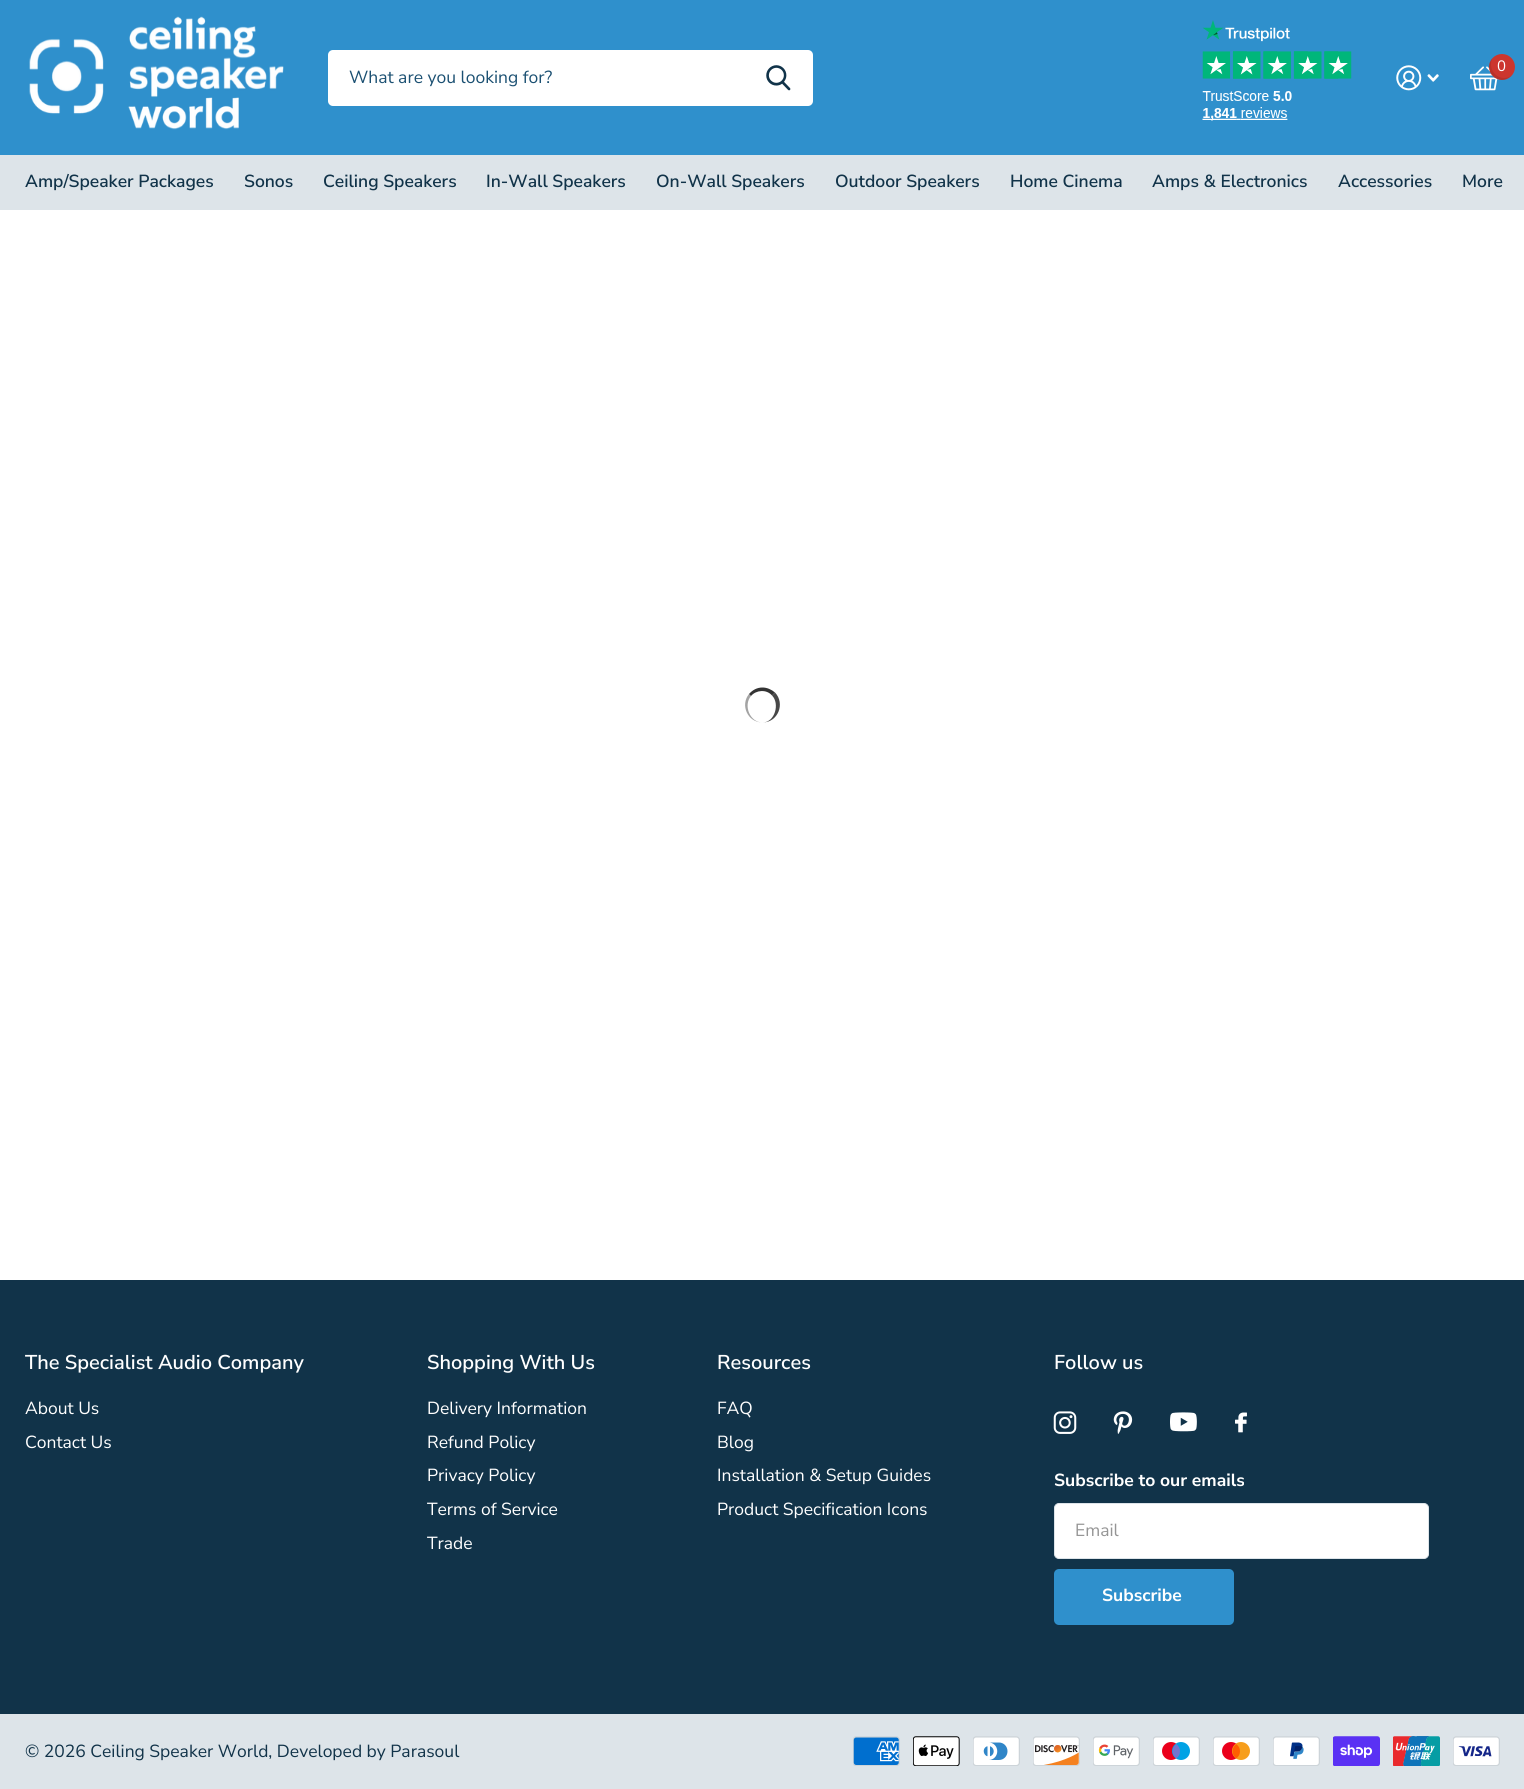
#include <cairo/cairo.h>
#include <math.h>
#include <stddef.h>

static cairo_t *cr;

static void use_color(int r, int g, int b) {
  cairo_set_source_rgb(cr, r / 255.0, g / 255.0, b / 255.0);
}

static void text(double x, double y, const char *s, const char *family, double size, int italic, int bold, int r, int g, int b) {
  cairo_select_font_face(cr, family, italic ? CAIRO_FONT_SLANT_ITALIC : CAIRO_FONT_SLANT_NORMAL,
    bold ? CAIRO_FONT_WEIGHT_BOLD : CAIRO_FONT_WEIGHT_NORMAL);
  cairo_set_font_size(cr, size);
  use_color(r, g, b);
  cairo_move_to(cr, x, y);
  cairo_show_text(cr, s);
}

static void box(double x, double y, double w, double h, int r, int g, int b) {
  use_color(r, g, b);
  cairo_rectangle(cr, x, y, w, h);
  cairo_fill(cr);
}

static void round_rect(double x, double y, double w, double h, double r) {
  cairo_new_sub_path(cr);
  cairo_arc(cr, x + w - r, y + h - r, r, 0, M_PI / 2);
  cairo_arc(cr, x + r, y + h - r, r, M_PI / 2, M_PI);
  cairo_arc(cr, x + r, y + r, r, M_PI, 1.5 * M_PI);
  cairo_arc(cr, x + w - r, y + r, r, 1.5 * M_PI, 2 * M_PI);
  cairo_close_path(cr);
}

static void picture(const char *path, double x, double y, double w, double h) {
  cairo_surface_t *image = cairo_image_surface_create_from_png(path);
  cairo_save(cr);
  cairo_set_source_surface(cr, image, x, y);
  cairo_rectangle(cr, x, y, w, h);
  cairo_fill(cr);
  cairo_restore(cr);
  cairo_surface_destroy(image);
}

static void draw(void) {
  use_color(255, 255, 255);
  cairo_paint(cr);
  box(0, 0, 1524, 155, 47, 144, 204);
  picture("img_01.png", 29, 16, 255, 114);
  picture("img_02.png", 1202, 20, 150, 101);
  picture("img_03.png", 1396, 65, 26, 26);
  picture("img_04.png", 1427, 74, 12, 8);
  picture("img_05.png", 1470, 66, 30, 25);
  use_color(204, 54, 46);
  cairo_arc(cr, 1502, 67, 13, 0, 2 * M_PI);
  cairo_fill(cr);
  cairo_set_source_rgba(cr, 0, 0, 0, 0.1);
  cairo_new_path(cr);
  cairo_move_to(cr, 1511, 76);
  cairo_curve_to(cr, 1499.5, 83, 1486.5, 70.5, 1492.5, 58);
  cairo_curve_to(cr, 1481, 70, 1499, 88, 1511, 76);
  cairo_close_path(cr);
  cairo_fill(cr);
  use_color(255, 255, 255);
  round_rect(328, 50, 485, 56, 5);
  cairo_fill(cr);
  picture("img_06.png", 766, 65, 25, 26);
  box(0, 155, 1524, 55, 221, 228, 233);
  use_color(51, 51, 51);
  cairo_new_path(cr);
  cairo_move_to(cr, 762.5, 687.5);
  cairo_curve_to(cr, 757, 687.5, 752.5, 690, 749, 694);
  cairo_line_to(cr, 751, 696);
  cairo_curve_to(cr, 756, 690, 766.5, 689, 772, 695.5);
  cairo_line_to(cr, 775, 692.5);
  cairo_curve_to(cr, 771.5, 689.5, 767, 687.5, 762.5, 687.5);
  cairo_close_path(cr);
  cairo_fill(cr);
  cairo_set_source_rgba(cr, 0.2, 0.2, 0.2, 0.9);
  cairo_new_path(cr);
  cairo_move_to(cr, 775, 692.5);
  cairo_curve_to(cr, 785.5, 703.5, 778, 722.5, 762.5, 722.5);
  cairo_curve_to(cr, 775, 722.5, 780, 703.5, 772, 695.5);
  cairo_close_path(cr);
  cairo_fill(cr);
  cairo_set_source_rgba(cr, 0.2, 0.2, 0.2, 0.45);
  cairo_new_path(cr);
  cairo_move_to(cr, 751, 696);
  cairo_line_to(cr, 749, 694);
  cairo_curve_to(cr, 740, 705, 747.5, 722.5, 762.5, 722.5);
  cairo_curve_to(cr, 750, 722.5, 743, 705.5, 751, 696);
  cairo_close_path(cr);
  cairo_fill(cr);
  box(0, 1280, 1524, 434, 17, 51, 73);
  picture("img_07.png", 1053, 1411, 24, 23);
  picture("img_08.png", 1113, 1411, 20, 23);
  picture("img_09.png", 1170, 1412, 27, 20);
  picture("img_10.png", 1235, 1412, 12, 21);
  use_color(255, 255, 255);
  round_rect(1054.5, 1503.5, 374, 55, 4.5);
  cairo_fill_preserve(cr);
  use_color(221, 228, 233);
  cairo_set_line_width(cr, 1);
  cairo_stroke(cr);
  use_color(47, 144, 204);
  round_rect(1054, 1569, 180, 56, 5);
  cairo_fill(cr);
  box(0, 1714, 1524, 75, 221, 228, 233);
  picture("img_11.png", 853, 1736, 47, 30);
  picture("img_12.png", 913, 1736, 47, 30);
  picture("img_13.png", 973, 1736, 47, 30);
  picture("img_14.png", 1033, 1736, 47, 30);
  picture("img_15.png", 1093, 1736, 47, 30);
  picture("img_16.png", 1153, 1736, 47, 30);
  picture("img_17.png", 1213, 1736, 47, 30);
  picture("img_18.png", 1273, 1736, 47, 30);
  picture("img_19.png", 1333, 1736, 47, 30);
  picture("img_20.png", 1393, 1736, 47, 30);
  picture("img_21.png", 1453, 1736, 47, 30);
  text(1497, 71, "0", "Nunito Sans", 15, 0, 0, 255, 255, 255);
  text(349, 83, "What are you looking for?", "Nunito Sans", 17.5, 0, 0, 27, 80, 114);
  text(25, 187, "Amp/Speaker Packages", "Nunito Sans SemiBold", 17.5, 0, 0, 17, 51, 73);
  text(244, 187, "Sonos", "Nunito Sans SemiBold", 17.5, 0, 0, 17, 51, 73);
  text(323, 187, "Ceiling Speakers", "Nunito Sans SemiBold", 17.5, 0, 0, 17, 51, 73);
  text(486, 187, "In-Wall Speakers", "Nunito Sans SemiBold", 17.5, 0, 0, 17, 51, 73);
  text(656, 187, "On-Wall Speakers", "Nunito Sans SemiBold", 17.5, 0, 0, 17, 51, 73);
  text(835, 187, "Outdoor Speakers", "Nunito Sans SemiBold", 17.5, 0, 0, 17, 51, 73);
  text(1010, 187, "Home Cinema", "Nunito Sans SemiBold", 17.5, 0, 0, 17, 51, 73);
  text(1152, 187, "Amps & Electronics", "Nunito Sans SemiBold", 17.5, 0, 0, 17, 51, 73);
  text(1338, 187, "Accessories", "Nunito Sans SemiBold", 17.5, 0, 0, 17, 51, 73);
  text(1462, 187, "More", "Nunito Sans SemiBold", 17.5, 0, 0, 17, 51, 73);
  text(25, 1369, "The Specialist Audio Company", "Nunito Sans SemiBold", 20, 0, 0, 255, 255, 255);
  text(25, 1414, "About Us", "Nunito Sans", 17.5, 0, 0, 255, 255, 255);
  text(25, 1448, "Contact Us", "Nunito Sans", 17.5, 0, 0, 255, 255, 255);
  text(427, 1369, "Shopping With Us", "Nunito Sans SemiBold", 20, 0, 0, 255, 255, 255);
  text(427, 1414, "Delivery Information", "Nunito Sans", 17.5, 0, 0, 255, 255, 255);
  text(427, 1448, "Refund Policy", "Nunito Sans", 17.5, 0, 0, 255, 255, 255);
  text(427, 1481, "Privacy Policy", "Nunito Sans", 17.5, 0, 0, 255, 255, 255);
  text(427, 1515, "Terms of Service", "Nunito Sans", 17.5, 0, 0, 255, 255, 255);
  text(427, 1549, "Trade", "Nunito Sans", 17.5, 0, 0, 255, 255, 255);
  text(717, 1369, "Resources", "Nunito Sans SemiBold", 20, 0, 0, 255, 255, 255);
  text(717, 1414, "FAQ", "Nunito Sans", 17.5, 0, 0, 255, 255, 255);
  text(717, 1448, "Blog", "Nunito Sans", 17.5, 0, 0, 255, 255, 255);
  text(717, 1481, "Installation & Setup Guides", "Nunito Sans", 17.5, 0, 0, 255, 255, 255);
  text(717, 1515, "Product Specification Icons", "Nunito Sans", 17.5, 0, 0, 255, 255, 255);
  text(1054, 1369, "Follow us", "Nunito Sans SemiBold", 20, 0, 0, 255, 255, 255);
  text(1054, 1486, "Subscribe to our emails", "Nunito Sans", 17.5, 0, 1, 255, 255, 255);
  text(1075, 1536, "Email", "Nunito Sans", 17.5, 0, 0, 149, 149, 149);
  text(1102, 1601, "Subscribe", "Nunito Sans", 17.5, 0, 1, 255, 255, 255);
  text(25, 1757, "© 2026 Ceiling Speaker World, Developed by Parasoul", "Nunito Sans", 17.5, 0, 0, 17, 51, 73);
}

int main(void) {
  cairo_surface_t *surface = cairo_image_surface_create(CAIRO_FORMAT_RGB24, 1524, 1789);
  cr = cairo_create(surface);
  cairo_font_options_t *options = cairo_font_options_create();
  cairo_font_options_set_hint_metrics(options, CAIRO_HINT_METRICS_OFF);
  cairo_font_options_set_hint_style(options, CAIRO_HINT_STYLE_NONE);
  cairo_set_font_options(cr, options);
  cairo_set_miter_limit(cr, 4);
  draw();
  cairo_surface_write_to_png(surface, "out.png");
  cairo_font_options_destroy(options);
  cairo_destroy(cr);
  cairo_surface_destroy(surface);
  return 0;
}
